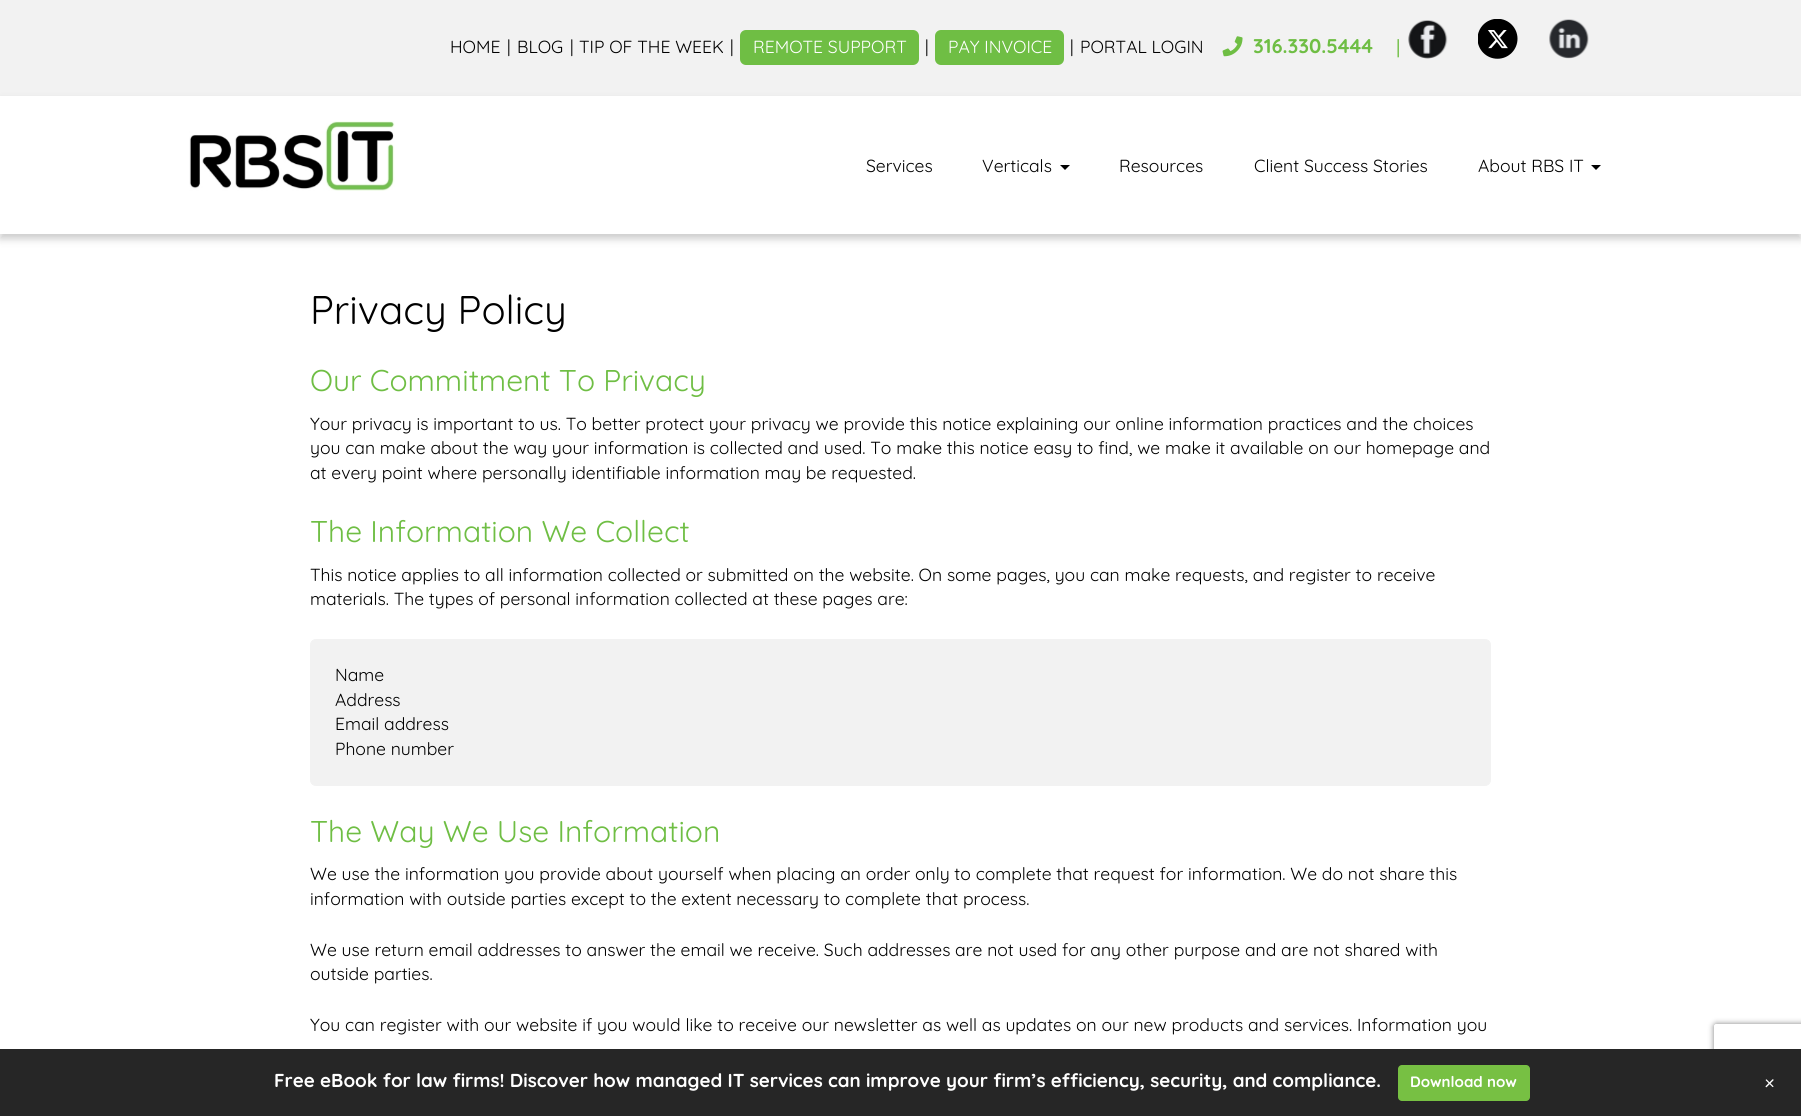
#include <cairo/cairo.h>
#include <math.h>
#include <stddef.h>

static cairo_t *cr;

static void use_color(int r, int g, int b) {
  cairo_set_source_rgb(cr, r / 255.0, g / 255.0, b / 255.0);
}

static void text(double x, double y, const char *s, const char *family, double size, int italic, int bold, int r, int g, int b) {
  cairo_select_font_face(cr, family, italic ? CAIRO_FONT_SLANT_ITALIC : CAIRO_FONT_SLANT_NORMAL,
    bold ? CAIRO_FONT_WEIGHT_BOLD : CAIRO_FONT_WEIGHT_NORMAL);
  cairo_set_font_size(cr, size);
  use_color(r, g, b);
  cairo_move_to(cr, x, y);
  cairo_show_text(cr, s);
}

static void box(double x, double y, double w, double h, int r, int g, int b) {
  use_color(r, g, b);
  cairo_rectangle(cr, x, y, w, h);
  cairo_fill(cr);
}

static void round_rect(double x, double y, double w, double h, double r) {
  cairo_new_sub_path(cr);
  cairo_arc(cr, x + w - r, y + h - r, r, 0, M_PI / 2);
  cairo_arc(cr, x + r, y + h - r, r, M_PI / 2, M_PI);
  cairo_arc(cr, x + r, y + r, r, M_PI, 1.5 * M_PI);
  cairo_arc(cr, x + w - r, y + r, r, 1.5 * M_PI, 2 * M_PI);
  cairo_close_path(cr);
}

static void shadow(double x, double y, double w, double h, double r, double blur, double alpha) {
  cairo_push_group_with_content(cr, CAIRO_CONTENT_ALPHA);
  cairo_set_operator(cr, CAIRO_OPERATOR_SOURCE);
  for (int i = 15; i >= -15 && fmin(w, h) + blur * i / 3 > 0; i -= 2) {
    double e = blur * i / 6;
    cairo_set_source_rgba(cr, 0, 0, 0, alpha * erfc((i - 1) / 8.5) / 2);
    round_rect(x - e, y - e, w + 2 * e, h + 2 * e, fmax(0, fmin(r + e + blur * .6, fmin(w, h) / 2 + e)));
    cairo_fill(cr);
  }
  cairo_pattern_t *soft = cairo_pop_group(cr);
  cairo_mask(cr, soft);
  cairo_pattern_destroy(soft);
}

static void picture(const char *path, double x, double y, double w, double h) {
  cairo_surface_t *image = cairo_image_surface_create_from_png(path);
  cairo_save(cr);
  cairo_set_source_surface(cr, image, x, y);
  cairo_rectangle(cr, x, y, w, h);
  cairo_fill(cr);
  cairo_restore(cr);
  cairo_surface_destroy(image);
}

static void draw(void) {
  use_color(255, 255, 255);
  cairo_paint(cr);
  box(0, 0, 1801, 96, 242, 242, 242);
  use_color(111, 190, 68);
  round_rect(740, 30, 179, 35, 6);
  cairo_fill(cr);
  round_rect(935, 30, 129, 35, 6);
  cairo_fill(cr);
  picture("img_01.png", 1222, 36, 21, 21);
  picture("img_02.png", 1408, 20, 40, 39);
  picture("img_03.png", 1478, 19, 40, 40);
  picture("img_04.png", 1549, 19, 40, 40);
  use_color(0, 0, 0);
  shadow(0, 101, 1801, 138, 0, 4, 0.2);
  box(0, 96, 1801, 138, 255, 255, 255);
  picture("img_05.png", 189, 121, 206, 70);
  use_color(0, 0, 0);
  cairo_new_path(cr);
  cairo_move_to(cr, 1060, 165);
  cairo_line_to(cr, 1070, 165);
  cairo_line_to(cr, 1065, 170);
  cairo_close_path(cr);
  cairo_fill(cr);
  cairo_new_path(cr);
  cairo_move_to(cr, 1591, 165);
  cairo_line_to(cr, 1601, 165);
  cairo_line_to(cr, 1596, 170);
  cairo_close_path(cr);
  cairo_fill(cr);
  use_color(242, 242, 242);
  round_rect(310.5, 639.5, 1180, 146, 5.5);
  cairo_fill_preserve(cr);
  cairo_set_line_width(cr, 1);
  cairo_stroke(cr);
  cairo_save(cr);
  cairo_set_fill_rule(cr, CAIRO_FILL_RULE_EVEN_ODD);
  cairo_new_path(cr);
  cairo_move_to(cr, 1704, 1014);
  cairo_line_to(cr, 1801, 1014);
  cairo_line_to(cr, 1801, 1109);
  cairo_line_to(cr, 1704, 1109);
  cairo_close_path(cr);
  cairo_move_to(cr, 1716.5, 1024);
  cairo_line_to(cr, 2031.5, 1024);
  cairo_curve_to(cr, 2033, 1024, 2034, 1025, 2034, 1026.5);
  cairo_line_to(cr, 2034, 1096.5);
  cairo_curve_to(cr, 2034, 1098, 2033, 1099, 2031.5, 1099);
  cairo_line_to(cr, 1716.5, 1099);
  cairo_curve_to(cr, 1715, 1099, 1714, 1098, 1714, 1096.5);
  cairo_line_to(cr, 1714, 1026.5);
  cairo_curve_to(cr, 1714, 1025, 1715, 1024, 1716.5, 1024);
  cairo_close_path(cr);
  cairo_clip(cr);
  use_color(128, 128, 128);
  shadow(1714, 1024, 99, 75, 2.5, 3, 1);
  cairo_restore(cr);
  box(0, 1049, 1801, 67, 38, 38, 38);
  use_color(119, 192, 67);
  round_rect(1398, 1065, 132, 36, 4);
  cairo_fill(cr);
  text(450, 53, "HOME", "Quicksand", 17.5, 0, 0, 0, 0, 0);
  text(507, 53, "|", "Quicksand", 17.5, 0, 0, 0, 0, 0);
  text(517, 53, "BLOG", "Quicksand", 17.5, 0, 0, 0, 0, 0);
  text(570, 53, "|", "Quicksand", 17.5, 0, 0, 0, 0, 0);
  text(579, 53, "TIP OF THE WEEK", "Quicksand", 17.5, 0, 0, 0, 0, 0);
  text(730, 53, "|", "Quicksand", 17.5, 0, 0, 0, 0, 0);
  text(753, 53, "REMOTE SUPPORT", "Quicksand", 17.5, 0, 0, 255, 255, 255);
  text(925, 53, "|", "Quicksand", 17.5, 0, 0, 0, 0, 0);
  text(948, 53, "PAY INVOICE", "Quicksand", 17.5, 0, 0, 255, 255, 255);
  text(1070, 53, "|", "Quicksand", 17.5, 0, 0, 0, 0, 0);
  text(1080, 53, "PORTAL LOGIN", "Quicksand", 17.5, 0, 0, 0, 0, 0);
  text(1253, 53, "316.330.5444", "Quicksand", 20, 0, 1, 111, 190, 68);
  text(1396, 53, "|", "Liberation Serif", 20, 0, 1, 111, 190, 68);
  text(866, 172, "Services", "Quicksand", 17.5, 0, 0, 0, 0, 0);
  text(982, 172, "Verticals", "Quicksand", 17.5, 0, 0, 0, 0, 0);
  text(1119, 172, "Resources", "Quicksand", 17.5, 0, 0, 0, 0, 0);
  text(1254, 172, "Client Success Stories", "Quicksand", 17.5, 0, 0, 0, 0, 0);
  text(1478, 172, "About RBS IT", "Quicksand", 17.5, 0, 0, 0, 0, 0);
  text(310, 324, "Privacy Policy", "Quicksand", 40, 0, 0, 0, 0, 0);
  text(310, 391, "Our Commitment To Privacy", "Quicksand", 30, 0, 0, 111, 190, 68);
  text(310, 430, "Your privacy is important to us. To better protect your privacy we provide this notice explaining our online information practices and the choices", "Quicksand", 17.5, 0, 0, 0, 0, 0);
  text(310, 454, "you can make about the way your information is collected and used. To make this notice easy to find, we make it available on our homepage and", "Quicksand", 17.5, 0, 0, 0, 0, 0);
  text(310, 479, "at every point where personally identifiable information may be requested.", "Quicksand", 17.5, 0, 0, 0, 0, 0);
  text(310, 542, "The Information We Collect", "Quicksand", 30, 0, 0, 111, 190, 68);
  text(310, 581, "This notice applies to all information collected or submitted on the website. On some pages, you can make requests, and register to receive", "Quicksand", 17.5, 0, 0, 0, 0, 0);
  text(310, 605, "materials. The types of personal information collected at these pages are:", "Quicksand", 17.5, 0, 0, 0, 0, 0);
  text(335, 681, "Name", "Quicksand", 17.5, 0, 0, 0, 0, 0);
  text(335, 706, "Address", "Quicksand", 17.5, 0, 0, 0, 0, 0);
  text(335, 730, "Email address", "Quicksand", 17.5, 0, 0, 0, 0, 0);
  text(335, 755, "Phone number", "Quicksand", 17.5, 0, 0, 0, 0, 0);
  text(310, 842, "The Way We Use Information", "Quicksand", 30, 0, 0, 111, 190, 68);
  text(310, 880, "We use the information you provide about yourself when placing an order only to complete that request for information. We do not share this", "Quicksand", 17.5, 0, 0, 0, 0, 0);
  text(310, 905, "information with outside parties except to the extent necessary to complete that process.", "Quicksand", 17.5, 0, 0, 0, 0, 0);
  text(310, 956, "We use return email addresses to answer the email we receive. Such addresses are not used for any other purpose and are not shared with", "Quicksand", 17.5, 0, 0, 0, 0, 0);
  text(310, 980, "outside parties.", "Quicksand", 17.5, 0, 0, 0, 0, 0);
  text(310, 1031, "You can register with our website if you would like to receive our newsletter as well as updates on our new products and services. Information you", "Quicksand", 17.5, 0, 0, 0, 0, 0);
  text(274, 1087, "Free eBook for law firms! Discover how managed IT services can improve your firm’s efficiency, security, and compliance.", "Quicksand", 18.75, 0, 1, 255, 255, 255);
  text(1410, 1087, "Download now", "Quicksand", 15, 0, 1, 255, 255, 255);
  cairo_save(cr);
  cairo_translate(cr, 1760, 1084);
  cairo_rotate(cr, 45 * M_PI / 180);
  text(0, 0, "+", "Quicksand", 22, 0, 0, 255, 255, 255);
  cairo_restore(cr);
}

int main(void) {
  cairo_surface_t *surface = cairo_image_surface_create(CAIRO_FORMAT_RGB24, 1801, 1116);
  cr = cairo_create(surface);
  cairo_font_options_t *options = cairo_font_options_create();
  cairo_font_options_set_hint_metrics(options, CAIRO_HINT_METRICS_OFF);
  cairo_font_options_set_hint_style(options, CAIRO_HINT_STYLE_NONE);
  cairo_set_font_options(cr, options);
  cairo_set_miter_limit(cr, 4);
  draw();
  cairo_surface_write_to_png(surface, "out.png");
  cairo_font_options_destroy(options);
  cairo_destroy(cr);
  cairo_surface_destroy(surface);
  return 0;
}
